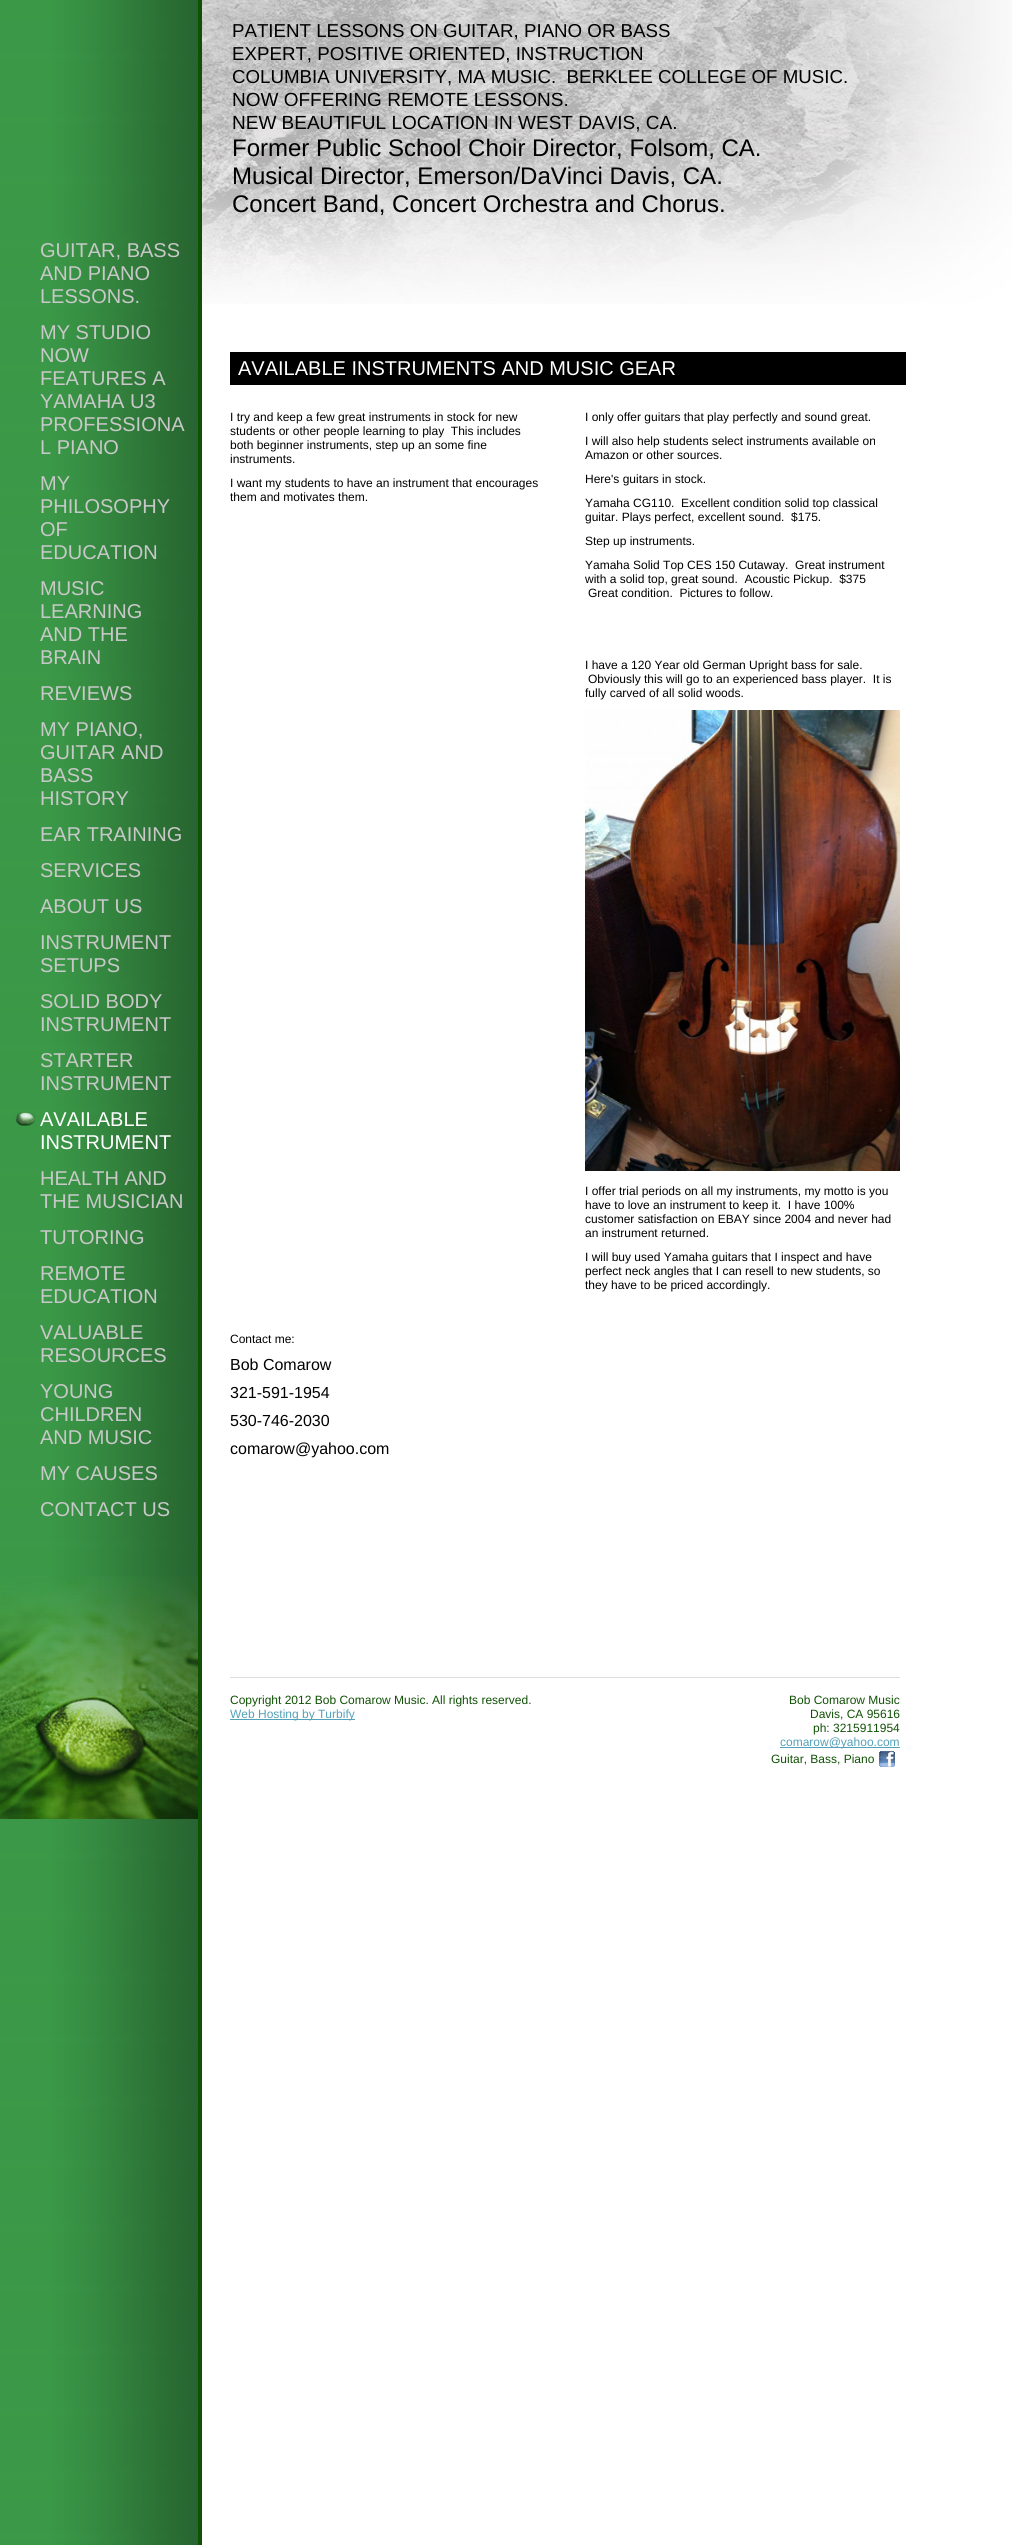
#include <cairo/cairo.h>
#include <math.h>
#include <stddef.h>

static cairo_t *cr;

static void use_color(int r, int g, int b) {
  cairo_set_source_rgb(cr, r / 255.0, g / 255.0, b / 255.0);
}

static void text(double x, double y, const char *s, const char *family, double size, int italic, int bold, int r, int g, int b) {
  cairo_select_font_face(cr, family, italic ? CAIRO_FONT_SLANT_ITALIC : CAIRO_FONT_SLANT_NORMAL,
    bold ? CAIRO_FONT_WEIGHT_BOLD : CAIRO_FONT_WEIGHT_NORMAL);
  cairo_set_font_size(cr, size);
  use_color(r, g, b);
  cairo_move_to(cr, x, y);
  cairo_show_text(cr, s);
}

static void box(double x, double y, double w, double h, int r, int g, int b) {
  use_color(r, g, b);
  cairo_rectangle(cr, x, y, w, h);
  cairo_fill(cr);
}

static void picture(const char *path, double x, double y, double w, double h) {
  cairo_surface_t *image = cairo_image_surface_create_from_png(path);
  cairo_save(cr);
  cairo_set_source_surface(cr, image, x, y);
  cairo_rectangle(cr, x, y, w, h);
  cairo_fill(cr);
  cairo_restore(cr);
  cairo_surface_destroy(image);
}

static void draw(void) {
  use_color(255, 255, 255);
  cairo_paint(cr);
  picture("img_01.png", 0, 0, 202, 2545);
  picture("img_02.png", 202, 0, 810, 304);
  picture("img_03.png", 0, 1576, 200, 243);
  picture("img_04.png", 15, 1112, 20, 14);
  box(230, 352, 676, 33, 0, 0, 0);
  picture("img_05.png", 585, 710, 315, 461);
  box(230, 1677, 670, 1, 221, 221, 221);
  box(230, 1719, 125, 1, 83, 161, 184);
  box(780, 1747, 120, 1, 83, 161, 184);
  picture("img_06.png", 879, 1751, 16, 16);
  text(232, 37, "PATIENT LESSONS ON GUITAR, PIANO OR BASS", "Liberation Sans", 18.7, 0, 0, 0, 0, 0);
  text(232, 60, "EXPERT, POSITIVE ORIENTED, INSTRUCTION", "Liberation Sans", 18.7, 0, 0, 0, 0, 0);
  text(232, 83, "COLUMBIA UNIVERSITY, MA MUSIC.  BERKLEE COLLEGE OF MUSIC.", "Liberation Sans", 18.7, 0, 0, 0, 0, 0);
  text(232, 106, "NOW OFFERING REMOTE LESSONS.", "Liberation Sans", 19, 0, 0, 0, 0, 0);
  text(232, 129, "NEW BEAUTIFUL LOCATION IN WEST DAVIS, CA.", "Liberation Sans", 19, 0, 0, 0, 0, 0);
  text(232, 156, "Former Public School Choir Director, Folsom, CA.", "Liberation Sans", 24, 0, 0, 0, 0, 0);
  text(232, 184, "Musical Director, Emerson/DaVinci Davis, CA.", "Liberation Sans", 24, 0, 0, 0, 0, 0);
  text(232, 212, "Concert Band, Concert Orchestra and Chorus.", "Liberation Sans", 24, 0, 0, 0, 0, 0);
  text(40, 257, "GUITAR, BASS", "Liberation Sans", 20, 0, 0, 200, 200, 200);
  text(40, 280, "AND PIANO", "Liberation Sans", 20, 0, 0, 200, 200, 200);
  text(40, 303, "LESSONS.", "Liberation Sans", 20, 0, 0, 200, 200, 200);
  text(40, 339, "MY STUDIO", "Liberation Sans", 20, 0, 0, 200, 200, 200);
  text(40, 362, "NOW", "Liberation Sans", 20, 0, 0, 200, 200, 200);
  text(40, 385, "FEATURES A", "Liberation Sans", 20, 0, 0, 200, 200, 200);
  text(40, 408, "YAMAHA U3", "Liberation Sans", 20, 0, 0, 200, 200, 200);
  text(40, 431, "PROFESSIONA", "Liberation Sans", 20, 0, 0, 200, 200, 200);
  text(40, 454, "L PIANO", "Liberation Sans", 20, 0, 0, 200, 200, 200);
  text(40, 490, "MY", "Liberation Sans", 20, 0, 0, 200, 200, 200);
  text(40, 513, "PHILOSOPHY", "Liberation Sans", 20, 0, 0, 200, 200, 200);
  text(40, 536, "OF", "Liberation Sans", 20, 0, 0, 200, 200, 200);
  text(40, 559, "EDUCATION", "Liberation Sans", 20, 0, 0, 200, 200, 200);
  text(40, 595, "MUSIC", "Liberation Sans", 20, 0, 0, 200, 200, 200);
  text(40, 618, "LEARNING", "Liberation Sans", 20, 0, 0, 200, 200, 200);
  text(40, 641, "AND THE", "Liberation Sans", 20, 0, 0, 200, 200, 200);
  text(40, 664, "BRAIN", "Liberation Sans", 20, 0, 0, 200, 200, 200);
  text(40, 700, "REVIEWS", "Liberation Sans", 20, 0, 0, 200, 200, 200);
  text(40, 736, "MY PIANO,", "Liberation Sans", 20, 0, 0, 200, 200, 200);
  text(40, 759, "GUITAR AND", "Liberation Sans", 20, 0, 0, 200, 200, 200);
  text(40, 782, "BASS", "Liberation Sans", 20, 0, 0, 200, 200, 200);
  text(40, 805, "HISTORY", "Liberation Sans", 20, 0, 0, 200, 200, 200);
  text(40, 841, "EAR TRAINING", "Liberation Sans", 20, 0, 0, 200, 200, 200);
  text(40, 877, "SERVICES", "Liberation Sans", 20, 0, 0, 200, 200, 200);
  text(40, 913, "ABOUT US", "Liberation Sans", 20, 0, 0, 200, 200, 200);
  text(40, 949, "INSTRUMENT", "Liberation Sans", 20, 0, 0, 200, 200, 200);
  text(40, 972, "SETUPS", "Liberation Sans", 20, 0, 0, 200, 200, 200);
  text(40, 1008, "SOLID BODY", "Liberation Sans", 20, 0, 0, 200, 200, 200);
  text(40, 1031, "INSTRUMENT", "Liberation Sans", 20, 0, 0, 200, 200, 200);
  text(40, 1067, "STARTER", "Liberation Sans", 20, 0, 0, 200, 200, 200);
  text(40, 1090, "INSTRUMENT", "Liberation Sans", 20, 0, 0, 200, 200, 200);
  text(40, 1126, "AVAILABLE", "Liberation Sans", 20, 0, 0, 255, 255, 255);
  text(40, 1149, "INSTRUMENT", "Liberation Sans", 20, 0, 0, 255, 255, 255);
  text(40, 1185, "HEALTH AND", "Liberation Sans", 20, 0, 0, 200, 200, 200);
  text(40, 1208, "THE MUSICIAN", "Liberation Sans", 20, 0, 0, 200, 200, 200);
  text(40, 1244, "TUTORING", "Liberation Sans", 20, 0, 0, 200, 200, 200);
  text(40, 1280, "REMOTE", "Liberation Sans", 20, 0, 0, 200, 200, 200);
  text(40, 1303, "EDUCATION", "Liberation Sans", 20, 0, 0, 200, 200, 200);
  text(40, 1339, "VALUABLE", "Liberation Sans", 20, 0, 0, 200, 200, 200);
  text(40, 1362, "RESOURCES", "Liberation Sans", 20, 0, 0, 200, 200, 200);
  text(40, 1398, "YOUNG", "Liberation Sans", 20, 0, 0, 200, 200, 200);
  text(40, 1421, "CHILDREN", "Liberation Sans", 20, 0, 0, 200, 200, 200);
  text(40, 1444, "AND MUSIC", "Liberation Sans", 20, 0, 0, 200, 200, 200);
  text(40, 1480, "MY CAUSES", "Liberation Sans", 20, 0, 0, 200, 200, 200);
  text(40, 1516, "CONTACT US", "Liberation Sans", 20, 0, 0, 200, 200, 200);
  text(238, 375, "AVAILABLE INSTRUMENTS AND MUSIC GEAR", "Liberation Sans", 20, 0, 0, 255, 255, 255);
  text(230, 421, "I try and keep a few great instruments in stock for new", "Liberation Sans", 12, 0, 0, 0, 0, 0);
  text(230, 435, "students or other people learning to play  This includes", "Liberation Sans", 12, 0, 0, 0, 0, 0);
  text(230, 449, "both beginner instruments, step up an some fine", "Liberation Sans", 12, 0, 0, 0, 0, 0);
  text(230, 463, "instruments.", "Liberation Sans", 12, 0, 0, 0, 0, 0);
  text(230, 487, "I want my students to have an instrument that encourages", "Liberation Sans", 12, 0, 0, 0, 0, 0);
  text(230, 501, "them and motivates them.", "Liberation Sans", 12, 0, 0, 0, 0, 0);
  text(585, 421, "I only offer guitars that play perfectly and sound great.", "Liberation Sans", 12, 0, 0, 0, 0, 0);
  text(585, 445, "I will also help students select instruments available on", "Liberation Sans", 12, 0, 0, 0, 0, 0);
  text(585, 459, "Amazon or other sources.", "Liberation Sans", 12, 0, 0, 0, 0, 0);
  text(585, 483, "Here's guitars in stock.", "Liberation Sans", 12, 0, 0, 0, 0, 0);
  text(585, 507, "Yamaha CG110.  Excellent condition solid top classical", "Liberation Sans", 12, 0, 0, 0, 0, 0);
  text(585, 521, "guitar. Plays perfect, excellent sound.  $175.", "Liberation Sans", 12, 0, 0, 0, 0, 0);
  text(585, 545, "Step up instruments.", "Liberation Sans", 12, 0, 0, 0, 0, 0);
  text(585, 569, "Yamaha Solid Top CES 150 Cutaway.  Great instrument", "Liberation Sans", 12, 0, 0, 0, 0, 0);
  text(585, 583, "with a solid top, great sound.  Acoustic Pickup.  $375", "Liberation Sans", 12, 0, 0, 0, 0, 0);
  text(588, 597, "Great condition.  Pictures to follow.", "Liberation Sans", 12, 0, 0, 0, 0, 0);
  text(585, 669, "I have a 120 Year old German Upright bass for sale.", "Liberation Sans", 12, 0, 0, 0, 0, 0);
  text(588, 683, "Obviously this will go to an experienced bass player.  It is", "Liberation Sans", 12, 0, 0, 0, 0, 0);
  text(585, 697, "fully carved of all solid woods.", "Liberation Sans", 12, 0, 0, 0, 0, 0);
  text(585, 1195, "I offer trial periods on all my instruments, my motto is you", "Liberation Sans", 12, 0, 0, 0, 0, 0);
  text(585, 1209, "have to love an instrument to keep it.  I have 100%", "Liberation Sans", 12, 0, 0, 0, 0, 0);
  text(585, 1223, "customer satisfaction on EBAY since 2004 and never had", "Liberation Sans", 12, 0, 0, 0, 0, 0);
  text(585, 1237, "an instrument returned.", "Liberation Sans", 12, 0, 0, 0, 0, 0);
  text(585, 1261, "I will buy used Yamaha guitars that I inspect and have", "Liberation Sans", 12, 0, 0, 0, 0, 0);
  text(585, 1275, "perfect neck angles that I can resell to new students, so", "Liberation Sans", 12, 0, 0, 0, 0, 0);
  text(585, 1289, "they have to be priced accordingly.", "Liberation Sans", 12, 0, 0, 0, 0, 0);
  text(230, 1343, "Contact me:", "Liberation Sans", 12, 0, 0, 0, 0, 0);
  text(230, 1370, "Bob Comarow", "Liberation Sans", 16, 0, 0, 0, 0, 0);
  text(230, 1398, "321-591-1954", "Liberation Sans", 16, 0, 0, 0, 0, 0);
  text(230, 1426, "530-746-2030", "Liberation Sans", 16, 0, 0, 0, 0, 0);
  text(230, 1454, "comarow@yahoo.com", "Liberation Sans", 16, 0, 0, 0, 0, 0);
  text(230, 1704, "Copyright 2012 Bob Comarow Music. All rights reserved.", "Liberation Sans", 12, 0, 0, 16, 81, 5);
  text(230, 1718, "Web Hosting by Turbify", "Liberation Sans", 12, 0, 0, 83, 161, 184);
  text(789, 1704, "Bob Comarow Music", "Liberation Sans", 12, 0, 0, 16, 81, 5);
  text(810, 1718, "Davis, CA 95616", "Liberation Sans", 12, 0, 0, 16, 81, 5);
  text(813, 1732, "ph: 3215911954", "Liberation Sans", 12, 0, 0, 16, 81, 5);
  text(780, 1746, "comarow@yahoo.com", "Liberation Sans", 12, 0, 0, 83, 161, 184);
  text(771, 1763, "Guitar, Bass, Piano", "Liberation Sans", 12, 0, 0, 16, 81, 5);
}

int main(void) {
  cairo_surface_t *surface = cairo_image_surface_create(CAIRO_FORMAT_RGB24, 1012, 2545);
  cr = cairo_create(surface);
  cairo_font_options_t *options = cairo_font_options_create();
  cairo_font_options_set_hint_metrics(options, CAIRO_HINT_METRICS_OFF);
  cairo_font_options_set_hint_style(options, CAIRO_HINT_STYLE_NONE);
  cairo_set_font_options(cr, options);
  cairo_set_miter_limit(cr, 4);
  draw();
  cairo_surface_write_to_png(surface, "out.png");
  cairo_font_options_destroy(options);
  cairo_destroy(cr);
  cairo_surface_destroy(surface);
  return 0;
}
